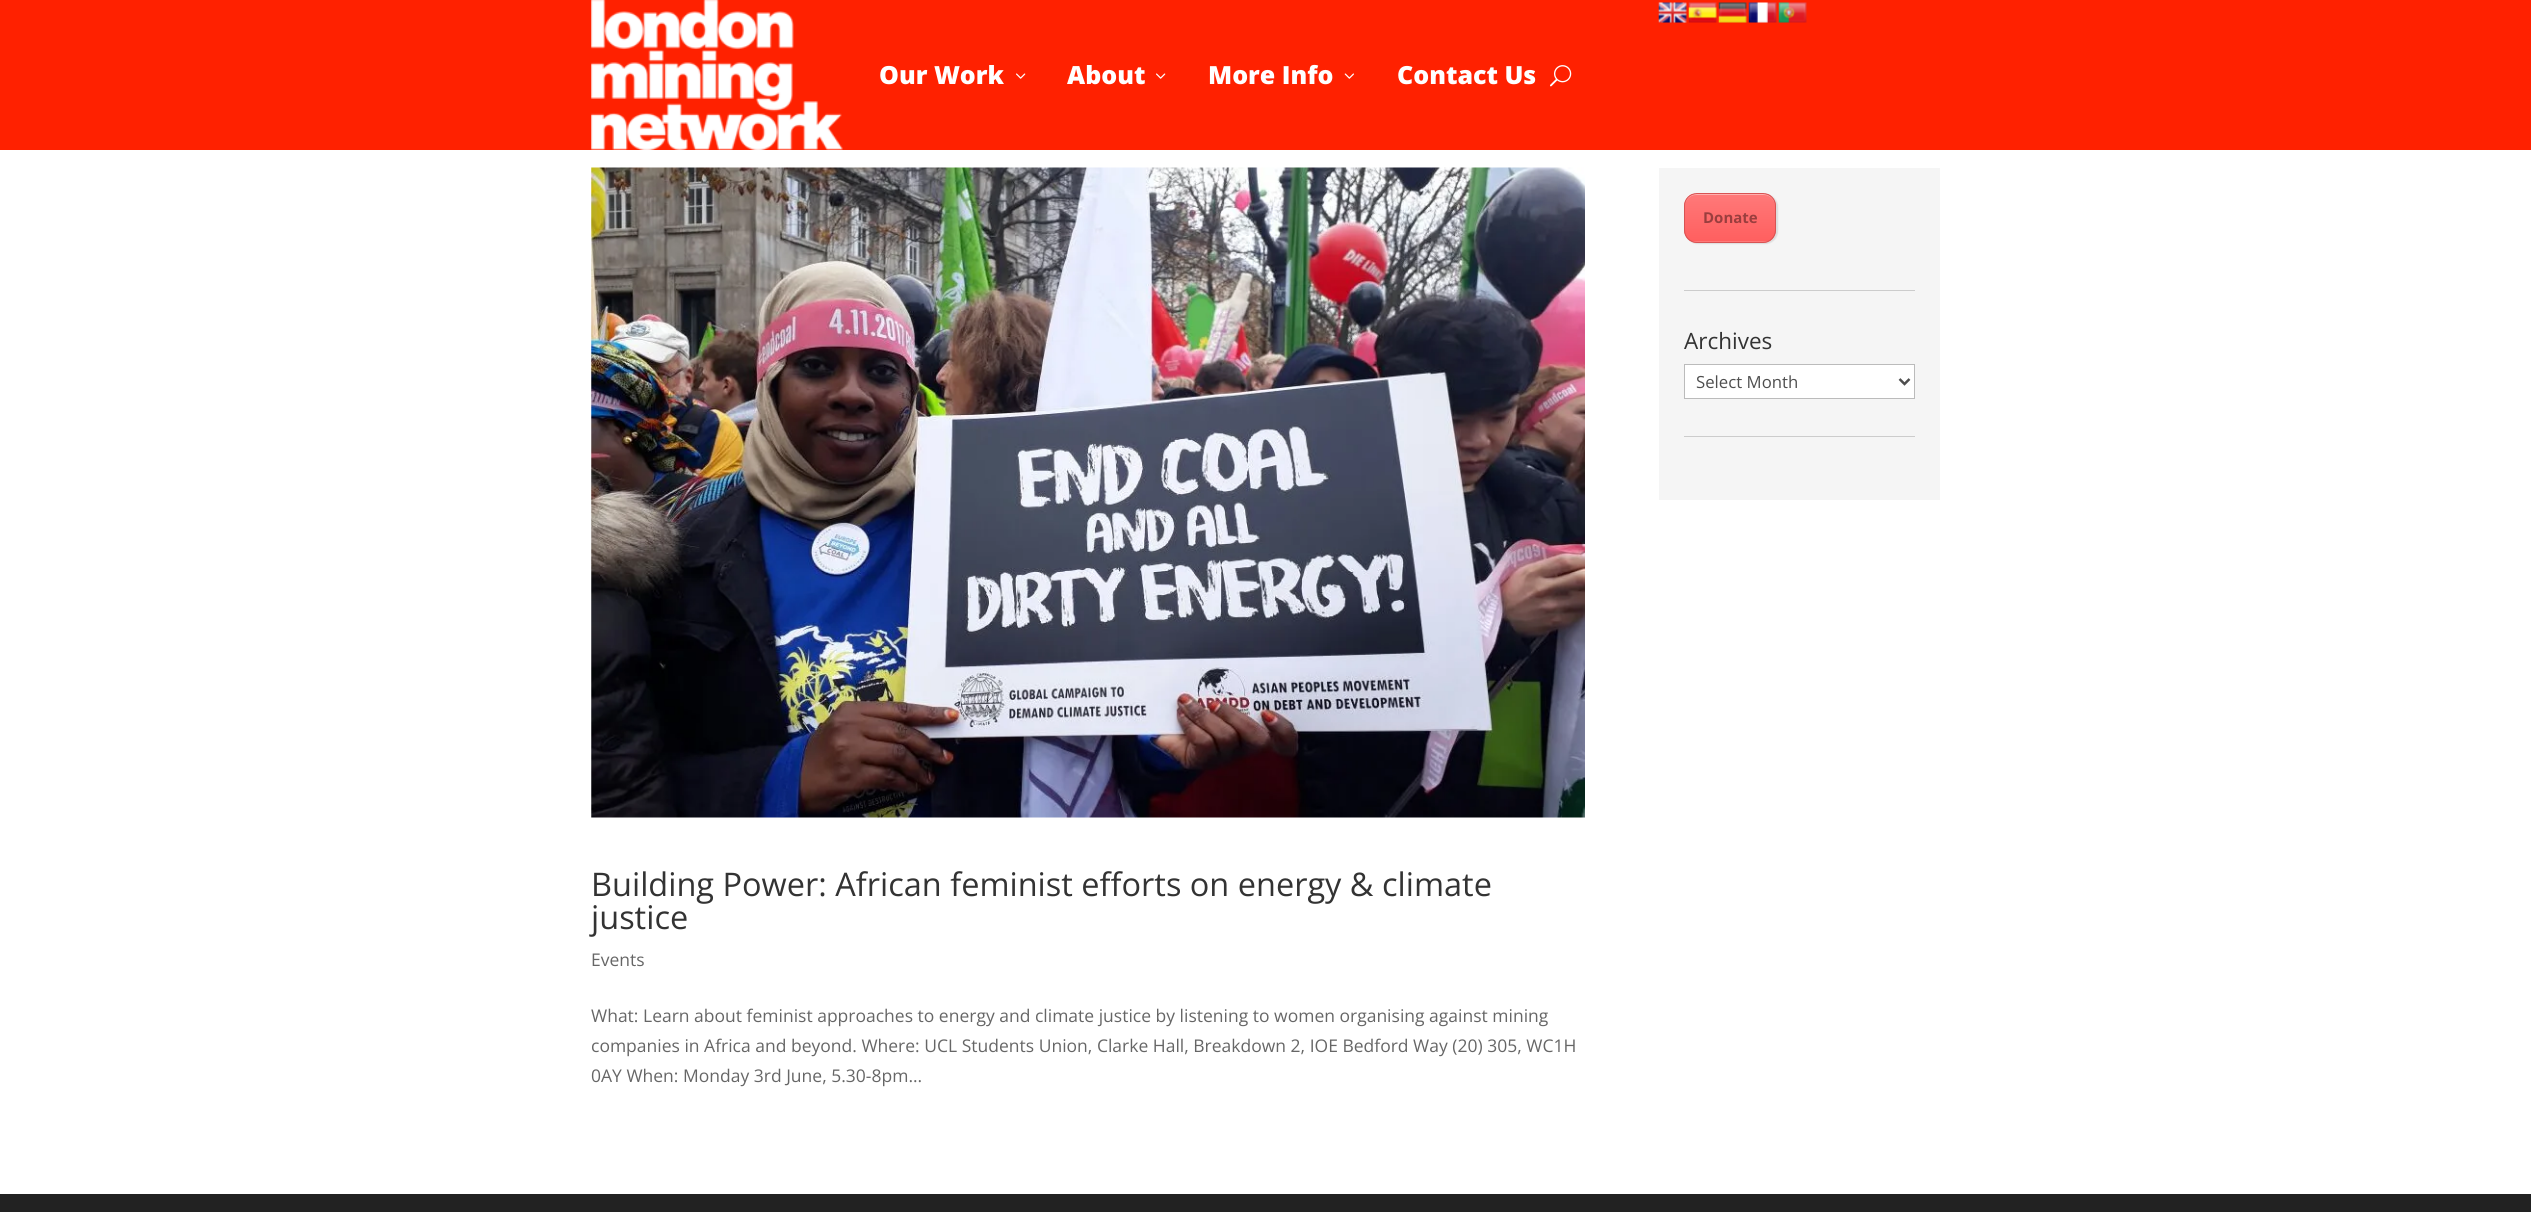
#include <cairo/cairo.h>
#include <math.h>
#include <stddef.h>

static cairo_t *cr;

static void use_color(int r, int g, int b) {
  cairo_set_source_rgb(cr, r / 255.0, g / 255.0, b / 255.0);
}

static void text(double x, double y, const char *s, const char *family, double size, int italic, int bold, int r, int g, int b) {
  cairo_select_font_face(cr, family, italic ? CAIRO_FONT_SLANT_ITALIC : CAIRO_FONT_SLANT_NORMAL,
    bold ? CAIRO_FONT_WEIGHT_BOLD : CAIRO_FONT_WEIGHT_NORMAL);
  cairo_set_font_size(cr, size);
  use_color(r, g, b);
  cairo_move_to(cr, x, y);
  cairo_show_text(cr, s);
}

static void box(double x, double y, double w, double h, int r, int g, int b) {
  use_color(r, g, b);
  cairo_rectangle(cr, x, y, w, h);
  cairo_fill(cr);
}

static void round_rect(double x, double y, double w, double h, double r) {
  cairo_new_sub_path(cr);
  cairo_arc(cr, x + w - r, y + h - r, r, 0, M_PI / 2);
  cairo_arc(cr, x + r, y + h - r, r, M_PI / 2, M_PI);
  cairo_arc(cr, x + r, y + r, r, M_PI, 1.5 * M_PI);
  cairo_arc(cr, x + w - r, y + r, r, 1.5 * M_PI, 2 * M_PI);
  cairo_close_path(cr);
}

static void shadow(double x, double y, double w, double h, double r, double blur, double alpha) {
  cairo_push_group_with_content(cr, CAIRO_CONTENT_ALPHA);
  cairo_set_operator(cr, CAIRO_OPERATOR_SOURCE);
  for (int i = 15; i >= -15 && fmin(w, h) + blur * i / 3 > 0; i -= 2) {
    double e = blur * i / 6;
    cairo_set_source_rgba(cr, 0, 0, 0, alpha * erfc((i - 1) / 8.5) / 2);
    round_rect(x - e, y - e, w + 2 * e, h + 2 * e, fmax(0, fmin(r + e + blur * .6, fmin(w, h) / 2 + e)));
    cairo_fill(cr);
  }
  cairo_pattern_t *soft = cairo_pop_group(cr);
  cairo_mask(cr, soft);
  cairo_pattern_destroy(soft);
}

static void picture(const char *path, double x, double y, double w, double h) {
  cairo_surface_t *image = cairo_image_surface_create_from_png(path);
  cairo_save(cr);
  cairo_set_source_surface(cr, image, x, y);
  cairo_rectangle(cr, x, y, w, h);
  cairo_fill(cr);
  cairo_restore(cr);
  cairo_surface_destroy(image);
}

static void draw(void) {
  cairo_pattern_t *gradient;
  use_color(255, 255, 255);
  cairo_paint(cr);
  box(0, 0, 2531, 150, 255, 33, 0);
  picture("img_01.png", 1658, 2, 29, 21);
  picture("img_02.png", 1688, 2, 29, 21);
  picture("img_03.png", 1718, 2, 29, 21);
  picture("img_04.png", 1748, 2, 29, 21);
  picture("img_05.png", 1778, 2, 29, 21);
  picture("img_06.png", 591, 0, 252, 150);
  picture("img_07.png", 1016, 73, 10, 6);
  picture("img_07.png", 1156, 73, 10, 6);
  picture("img_08.png", 1344, 73, 10, 6);
  picture("img_09.png", 1550, 65, 22, 22);
  box(1659, 168, 281, 332, 245, 245, 245);
  box(1684, 290, 231, 1, 204, 204, 204);
  use_color(0, 0, 0);
  shadow(1685, 194, 93, 50, 13, 0.5, 0.1);
  cairo_save(cr);
  round_rect(1684, 193, 92, 50, 13);
  cairo_clip(cr);
  gradient = cairo_pattern_create_linear(1730, 194, 1730, 241);
  cairo_pattern_add_color_stop_rgba(gradient, 0, 1, 0.475, 0.475, 1);
  cairo_pattern_add_color_stop_rgba(gradient, 1, 1, 0.373, 0.373, 1);
  cairo_set_source(cr, gradient);
  cairo_pattern_destroy(gradient);
  cairo_rectangle(cr, 1684, 194, 92, 47);
  cairo_fill(cr);
  gradient = cairo_pattern_create_linear(1730, 241, 1730, 289);
  cairo_pattern_add_color_stop_rgba(gradient, 0, 1, 0.475, 0.475, 1);
  cairo_pattern_add_color_stop_rgba(gradient, 1, 1, 0.373, 0.373, 1);
  cairo_set_source(cr, gradient);
  cairo_pattern_destroy(gradient);
  cairo_rectangle(cr, 1684, 241, 92, 2);
  cairo_fill(cr);
  cairo_restore(cr);
  cairo_set_source_rgba(cr, 1, 1, 1, 0.4);
  cairo_new_path(cr);
  cairo_move_to(cr, 1696, 195);
  cairo_line_to(cr, 1764, 195);
  cairo_curve_to(cr, 1770, 195, 1775, 200, 1775, 206);
  cairo_curve_to(cr, 1775, 192, 1763, 194, 1753, 194);
  cairo_line_to(cr, 1707, 194);
  cairo_curve_to(cr, 1697, 194, 1685, 192, 1685, 206);
  cairo_curve_to(cr, 1685, 200, 1690, 195, 1696, 195);
  cairo_close_path(cr);
  cairo_fill(cr);
  round_rect(1684.5, 193.5, 91, 49, 12.5);
  use_color(216, 83, 83);
  cairo_set_line_width(cr, 1);
  cairo_stroke(cr);
  box(1684, 436, 231, 1, 204, 204, 204);
  use_color(255, 255, 255);
  cairo_rectangle(cr, 1684.5, 364.5, 230, 34);
  cairo_fill_preserve(cr);
  use_color(187, 187, 187);
  cairo_stroke(cr);
  cairo_new_path(cr);
  cairo_move_to(cr, 1899.5, 379);
  cairo_line_to(cr, 1904.5, 384);
  cairo_line_to(cr, 1909.5, 379);
  use_color(78, 78, 78);
  cairo_set_line_width(cr, 2.5);
  cairo_stroke(cr);
  picture("img_10.png", 591, 167, 994, 651);
  box(0, 1194, 2531, 18, 34, 34, 34);
  text(879, 84, "Our Work", "Open Sans ExtraBold", 25, 0, 0, 255, 255, 255);
  text(1067, 84, "About", "Open Sans ExtraBold", 25, 0, 0, 255, 255, 255);
  text(1208, 84, "More Info", "Open Sans ExtraBold", 25, 0, 0, 255, 255, 255);
  text(1397, 84, "Contact Us", "Open Sans ExtraBold", 25, 0, 0, 255, 255, 255);
  text(1703, 223, "Donate", "Open Sans", 15, 0, 1, 154, 62, 62);
  text(1684, 349, "Archives", "Open Sans", 22.5, 0, 0, 51, 51, 51);
  text(1696, 388, "Select Month", "Open Sans", 16.75, 0, 0, 78, 78, 78);
  text(591, 896, "Building Power: African feminist efforts on energy & climate", "Open Sans", 32.5, 0, 0, 51, 51, 51);
  text(591, 929, "justice", "Open Sans", 32.5, 0, 0, 51, 51, 51);
  text(591, 966, "Events", "Open Sans", 17.5, 0, 0, 102, 102, 102);
  text(591, 1022, "What: Learn about feminist approaches to energy and climate justice by listening to women organising against mining", "Open Sans", 17.5, 0, 0, 102, 102, 102);
  text(591, 1052, "companies in Africa and beyond. Where: UCL Students Union, Clarke Hall, Breakdown 2, IOE Bedford Way (20) 305, WC1H", "Open Sans", 17.5, 0, 0, 102, 102, 102);
  text(591, 1082, "0AY When: Monday 3rd June, 5.30-8pm...", "Open Sans", 17.5, 0, 0, 102, 102, 102);
}

int main(void) {
  cairo_surface_t *surface = cairo_image_surface_create(CAIRO_FORMAT_RGB24, 2531, 1212);
  cr = cairo_create(surface);
  cairo_font_options_t *options = cairo_font_options_create();
  cairo_font_options_set_hint_metrics(options, CAIRO_HINT_METRICS_OFF);
  cairo_font_options_set_hint_style(options, CAIRO_HINT_STYLE_NONE);
  cairo_set_font_options(cr, options);
  cairo_set_miter_limit(cr, 4);
  draw();
  cairo_surface_write_to_png(surface, "out.png");
  cairo_font_options_destroy(options);
  cairo_destroy(cr);
  cairo_surface_destroy(surface);
  return 0;
}
